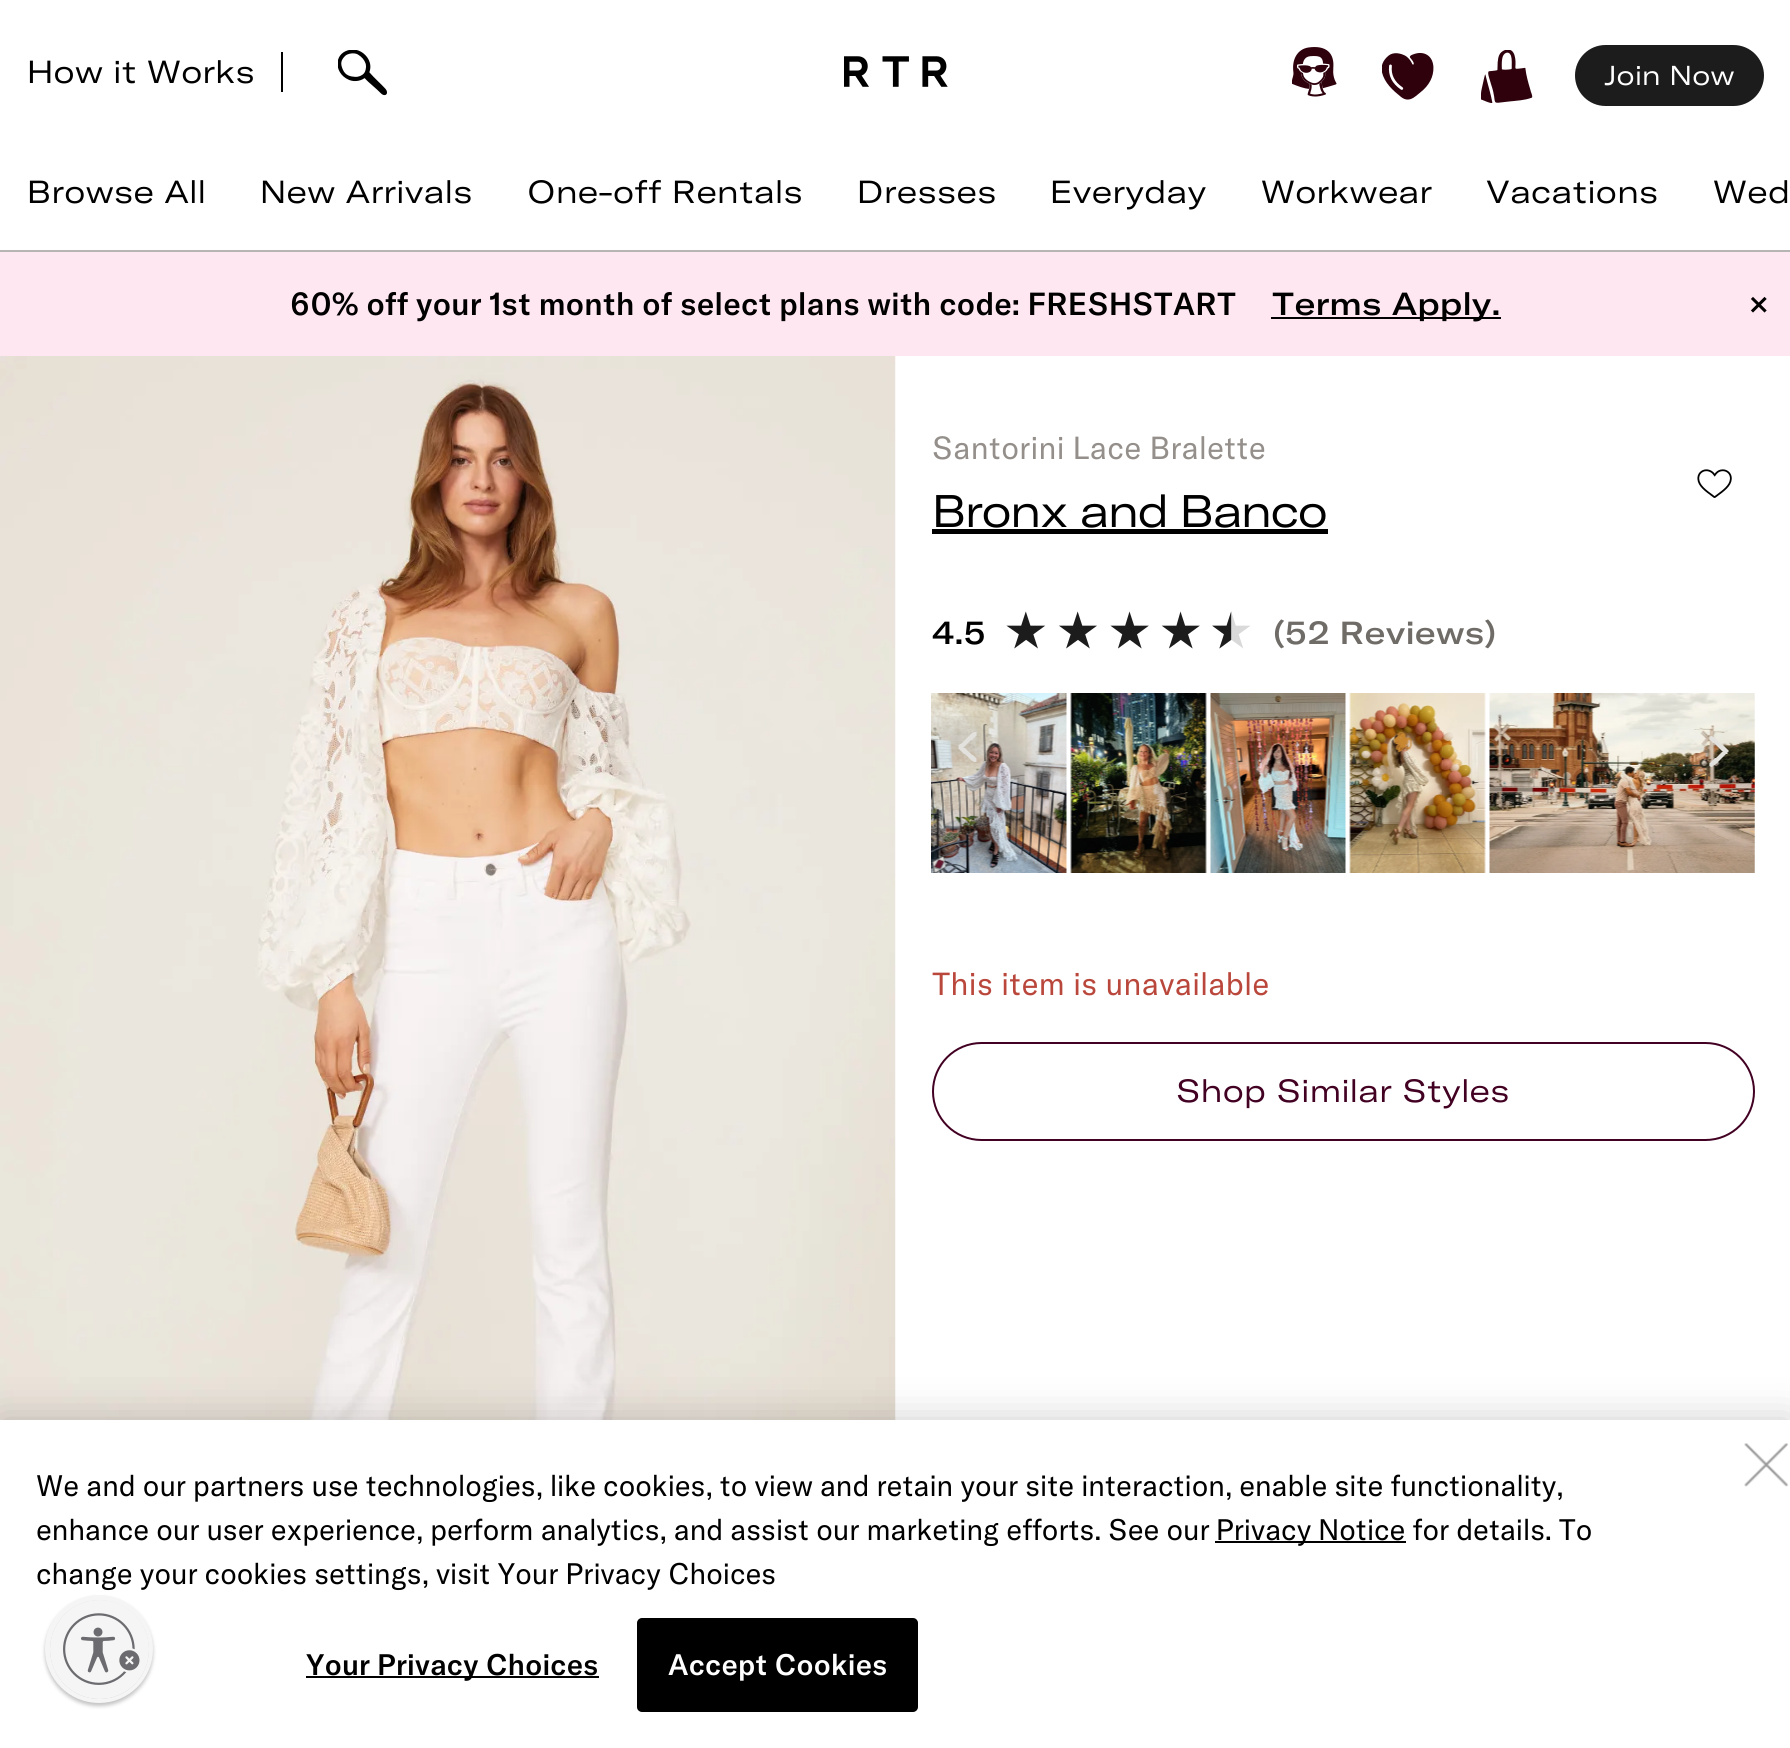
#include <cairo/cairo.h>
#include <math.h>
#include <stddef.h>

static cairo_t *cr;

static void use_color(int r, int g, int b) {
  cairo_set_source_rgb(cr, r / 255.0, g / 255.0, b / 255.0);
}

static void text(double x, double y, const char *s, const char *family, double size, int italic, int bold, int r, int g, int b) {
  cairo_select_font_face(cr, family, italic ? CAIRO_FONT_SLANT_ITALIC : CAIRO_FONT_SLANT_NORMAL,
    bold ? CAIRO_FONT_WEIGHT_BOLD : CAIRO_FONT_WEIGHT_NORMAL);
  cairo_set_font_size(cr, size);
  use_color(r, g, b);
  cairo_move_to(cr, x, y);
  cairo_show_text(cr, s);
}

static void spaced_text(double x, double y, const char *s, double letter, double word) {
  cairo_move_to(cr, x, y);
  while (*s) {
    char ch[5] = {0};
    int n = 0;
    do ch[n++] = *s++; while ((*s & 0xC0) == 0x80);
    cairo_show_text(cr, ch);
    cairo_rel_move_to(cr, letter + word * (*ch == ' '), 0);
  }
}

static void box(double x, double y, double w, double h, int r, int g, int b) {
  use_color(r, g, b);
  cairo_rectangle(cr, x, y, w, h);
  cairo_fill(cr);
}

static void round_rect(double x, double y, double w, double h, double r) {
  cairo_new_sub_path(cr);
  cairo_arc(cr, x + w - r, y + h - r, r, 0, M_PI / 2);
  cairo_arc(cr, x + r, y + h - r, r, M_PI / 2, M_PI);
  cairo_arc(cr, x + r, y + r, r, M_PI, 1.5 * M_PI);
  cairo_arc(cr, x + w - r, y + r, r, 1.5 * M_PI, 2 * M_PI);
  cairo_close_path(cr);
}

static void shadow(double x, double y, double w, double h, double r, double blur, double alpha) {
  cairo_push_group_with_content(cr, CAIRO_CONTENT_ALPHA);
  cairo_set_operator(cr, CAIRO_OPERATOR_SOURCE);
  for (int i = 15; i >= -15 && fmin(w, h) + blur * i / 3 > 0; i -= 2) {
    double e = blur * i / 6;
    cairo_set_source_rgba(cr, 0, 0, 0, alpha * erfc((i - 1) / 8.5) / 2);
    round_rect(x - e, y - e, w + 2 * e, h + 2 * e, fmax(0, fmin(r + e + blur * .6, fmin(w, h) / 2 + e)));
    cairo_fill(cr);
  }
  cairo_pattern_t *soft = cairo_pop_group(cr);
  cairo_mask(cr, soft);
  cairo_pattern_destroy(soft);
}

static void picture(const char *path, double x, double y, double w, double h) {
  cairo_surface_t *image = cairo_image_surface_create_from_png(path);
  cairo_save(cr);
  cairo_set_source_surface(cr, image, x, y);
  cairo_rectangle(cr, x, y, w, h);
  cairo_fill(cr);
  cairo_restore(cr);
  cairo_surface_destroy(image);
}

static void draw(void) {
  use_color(255, 255, 255);
  cairo_paint(cr);
  box(0, 250, 1790, 2, 183, 181, 179);
  box(281, 52, 2, 40, 0, 0, 0);
  picture("img_01.png", 338, 50, 49, 46);
  picture("img_02.png", 844, 56, 104, 31);
  picture("img_03.png", 1292, 47, 45, 50);
  picture("img_04.png", 1382, 53, 52, 47);
  picture("img_05.png", 1481, 50, 52, 53);
  use_color(28, 28, 28);
  round_rect(1576, 46, 187, 59, 29.5);
  cairo_fill_preserve(cr);
  cairo_stroke(cr);
  box(0, 252, 1790, 104, 255, 231, 242);
  box(1271, 317, 230, 2, 0, 0, 0);
  picture("img_06.png", 0, 356, 896, 1064);
  picture("img_07.png", 1697, 469, 35, 29);
  box(932, 529, 396, 5, 0, 0, 0);
  picture("img_08.png", 1006, 611, 245, 38);
  picture("img_09.png", 931, 693, 136, 180);
  picture("img_10.png", 1070, 693, 137, 180);
  picture("img_11.png", 1210, 693, 136, 180);
  picture("img_12.png", 1349, 693, 137, 180);
  picture("img_13.png", 1489, 693, 266, 180);
  picture("img_14.png", 937, 716, 44, 50);
  picture("img_15.png", 1705, 732, 41, 51);
  round_rect(933, 1043, 821, 97, 48.5);
  use_color(66, 0, 34);
  cairo_stroke(cr);
  use_color(0, 0, 0);
  shadow(0, 1420, 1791, 328, 0, 20, 0.2);
  box(0, 1420, 1790, 328, 255, 255, 255);
  picture("img_16.png", 1744, 1443, 45, 44);
  box(1215, 1541, 191, 2, 0, 0, 0);
  box(306, 1676, 293, 2, 0, 0, 0);
  round_rect(638, 1619, 279, 92, 4);
  cairo_fill_preserve(cr);
  cairo_stroke(cr);
  use_color(0, 0, 0);
  shadow(45, 1598, 108, 108, 54, 2, 0.24);
  use_color(235, 235, 240);
  cairo_arc(cr, 99, 1649, 51.5, 0, 2 * M_PI);
  cairo_fill_preserve(cr);
  use_color(245, 245, 245);
  cairo_set_line_width(cr, 5);
  cairo_stroke(cr);
  cairo_save(cr);
  round_rect(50, 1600, 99, 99, 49.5);
  cairo_clip(cr);
  use_color(0, 0, 0);
  shadow(50, 1602, 99, 99, 49.5, 2, 0.24);
  cairo_restore(cr);
  cairo_arc(cr, 99.5, 1649.5, 49.5, 0, 2 * M_PI);
  cairo_fill(cr);
  picture("img_17.png", 63, 1613, 77, 72);
  cairo_select_font_face(cr, "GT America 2", CAIRO_FONT_SLANT_NORMAL, CAIRO_FONT_WEIGHT_NORMAL);
  cairo_set_font_size(cr, 31.5);
  use_color(0, 0, 0);
  spaced_text(27, 83, "How it Works", 0.32, 0);
  cairo_set_font_size(cr, 27);
  use_color(255, 255, 255);
  spaced_text(1604, 85, "Join Now", 0.25, 0);
  cairo_set_font_size(cr, 31.5);
  use_color(0, 0, 0);
  spaced_text(27, 203, "Browse All", 0.32, 0);
  spaced_text(260, 203, "New Arrivals", 0.32, 0);
  spaced_text(527, 203, "One-off Rentals", 0.32, 0);
  spaced_text(857, 203, "Dresses", 0.32, 0);
  spaced_text(1050, 203, "Everyday", 0.32, 0);
  spaced_text(1261, 203, "Workwear", 0.32, 0);
  spaced_text(1486, 203, "Vacations", 0.32, 0);
  spaced_text(1713, 203, "Wed", 0.32, 0);
  cairo_select_font_face(cr, "GT America 2 Medium", CAIRO_FONT_SLANT_NORMAL, CAIRO_FONT_WEIGHT_NORMAL);
  spaced_text(290, 315, "60% off your 1st month of select plans with code: FRESHSTART", 0.32, 0);
  cairo_select_font_face(cr, "GT America Medium", CAIRO_FONT_SLANT_NORMAL, CAIRO_FONT_WEIGHT_NORMAL);
  spaced_text(1272, 315, "Terms Apply.", 0.32, 0);
  cairo_select_font_face(cr, "GT America 2 Medium", CAIRO_FONT_SLANT_NORMAL, CAIRO_FONT_WEIGHT_NORMAL);
  spaced_text(1749, 315, "×", 0.32, 0);
  cairo_select_font_face(cr, "GT America", CAIRO_FONT_SLANT_NORMAL, CAIRO_FONT_WEIGHT_NORMAL);
  use_color(148, 143, 138);
  spaced_text(932, 459, "Santorini Lace Bralette", 0.32, 0);
  cairo_select_font_face(cr, "GT America 2", CAIRO_FONT_SLANT_NORMAL, CAIRO_FONT_WEIGHT_NORMAL);
  cairo_set_font_size(cr, 45);
  use_color(0, 0, 0);
  spaced_text(932, 527, "Bronx and Banco", -1.4, 0);
  cairo_select_font_face(cr, "GT America Medium", CAIRO_FONT_SLANT_NORMAL, CAIRO_FONT_WEIGHT_NORMAL);
  cairo_set_font_size(cr, 31.5);
  spaced_text(932, 644, "4.5", 0.32, 0);
  use_color(111, 107, 103);
  spaced_text(1273, 644, "(52 Reviews)", 0.32, 0);
  cairo_select_font_face(cr, "GT America", CAIRO_FONT_SLANT_NORMAL, CAIRO_FONT_WEIGHT_NORMAL);
  use_color(186, 71, 59);
  spaced_text(932, 995, "This item is unavailable", 0.32, 0);
  cairo_select_font_face(cr, "GT America 2", CAIRO_FONT_SLANT_NORMAL, CAIRO_FONT_WEIGHT_NORMAL);
  use_color(66, 0, 34);
  spaced_text(1176, 1102, "Shop Similar Styles", 0.32, 0);
  text(36, 1496, "We and our partners use technologies, like cookies, to view and retain your site interaction, enable site functionality,", "GT America", 29.27, 0, 0, 0, 0, 0);
  text(36, 1540, "enhance our user experience, perform analytics, and assist our marketing efforts. See our", "GT America", 29.27, 0, 0, 0, 0, 0);
  text(1216, 1540, "Privacy Notice for details. To", "GT America", 29.27, 0, 0, 0, 0, 0);
  text(36, 1584, "change your cookies settings, visit Your Privacy Choices", "GT America", 29.27, 0, 0, 0, 0, 0);
  cairo_select_font_face(cr, "GT America 2 Medium", CAIRO_FONT_SLANT_NORMAL, CAIRO_FONT_WEIGHT_NORMAL);
  spaced_text(306, 1675, "Your Privacy Choices", 0.25, 0);
  use_color(255, 255, 255);
  spaced_text(668, 1675, "Accept Cookies", 0.25, 0);
}

int main(void) {
  cairo_surface_t *surface = cairo_image_surface_create(CAIRO_FORMAT_RGB24, 1790, 1748);
  cr = cairo_create(surface);
  cairo_font_options_t *options = cairo_font_options_create();
  cairo_font_options_set_hint_metrics(options, CAIRO_HINT_METRICS_OFF);
  cairo_font_options_set_hint_style(options, CAIRO_HINT_STYLE_NONE);
  cairo_set_font_options(cr, options);
  cairo_set_miter_limit(cr, 4);
  draw();
  cairo_surface_write_to_png(surface, "out.png");
  cairo_font_options_destroy(options);
  cairo_destroy(cr);
  cairo_surface_destroy(surface);
  return 0;
}
